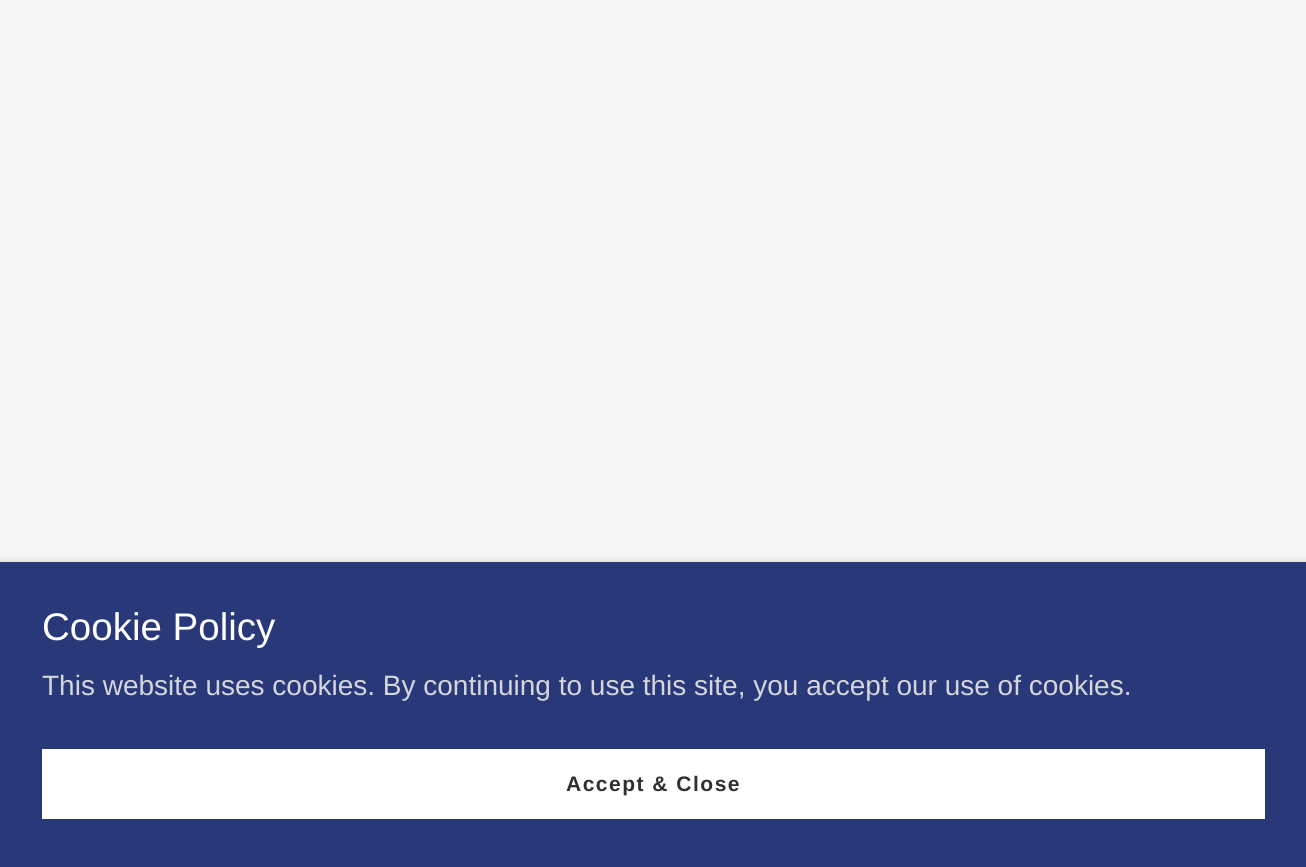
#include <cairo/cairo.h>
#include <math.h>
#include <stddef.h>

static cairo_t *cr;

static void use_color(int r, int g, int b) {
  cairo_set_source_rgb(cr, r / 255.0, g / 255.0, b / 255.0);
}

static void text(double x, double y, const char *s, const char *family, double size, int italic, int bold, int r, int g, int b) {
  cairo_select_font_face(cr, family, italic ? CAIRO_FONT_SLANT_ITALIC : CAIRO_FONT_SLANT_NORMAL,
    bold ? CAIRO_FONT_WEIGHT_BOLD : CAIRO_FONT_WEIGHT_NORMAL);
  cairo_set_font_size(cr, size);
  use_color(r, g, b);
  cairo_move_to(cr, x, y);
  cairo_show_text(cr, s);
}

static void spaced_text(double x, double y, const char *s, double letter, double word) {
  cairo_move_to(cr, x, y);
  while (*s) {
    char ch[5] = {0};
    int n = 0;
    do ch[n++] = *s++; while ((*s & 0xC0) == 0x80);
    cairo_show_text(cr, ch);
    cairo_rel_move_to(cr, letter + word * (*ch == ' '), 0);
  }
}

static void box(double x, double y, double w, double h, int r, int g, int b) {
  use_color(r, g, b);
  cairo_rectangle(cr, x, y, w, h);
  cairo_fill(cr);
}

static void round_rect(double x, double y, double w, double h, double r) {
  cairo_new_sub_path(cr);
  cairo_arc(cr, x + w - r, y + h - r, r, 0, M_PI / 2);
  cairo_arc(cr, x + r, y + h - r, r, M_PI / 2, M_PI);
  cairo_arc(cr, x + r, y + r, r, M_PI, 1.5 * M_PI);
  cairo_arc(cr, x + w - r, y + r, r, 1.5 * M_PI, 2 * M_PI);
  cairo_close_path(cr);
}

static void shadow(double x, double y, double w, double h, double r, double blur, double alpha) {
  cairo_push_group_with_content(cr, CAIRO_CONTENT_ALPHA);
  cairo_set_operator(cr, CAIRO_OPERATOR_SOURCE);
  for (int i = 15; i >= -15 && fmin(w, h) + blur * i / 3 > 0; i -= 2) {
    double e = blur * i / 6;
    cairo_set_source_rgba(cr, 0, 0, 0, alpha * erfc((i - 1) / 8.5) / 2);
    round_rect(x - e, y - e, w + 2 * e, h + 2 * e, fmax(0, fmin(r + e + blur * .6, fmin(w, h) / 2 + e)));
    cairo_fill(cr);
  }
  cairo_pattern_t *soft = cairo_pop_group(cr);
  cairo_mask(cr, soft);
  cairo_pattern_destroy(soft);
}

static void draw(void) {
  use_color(246, 246, 246);
  cairo_paint(cr);
  use_color(0, 0, 0);
  shadow(0, 565, 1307, 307, 0, 5, 0.3);
  box(0, 562, 1306, 305, 40, 56, 120);
  box(42, 749, 1223, 70, 255, 255, 255);
  text(42, 640, "Cookie Policy", "Liberation Sans", 38.5, 0, 0, 255, 255, 255);
  text(42, 695, "This website uses cookies. By continuing to use this site, you accept our use of cookies.", "Liberation Sans", 28, 0, 0, 213, 214, 220);
  cairo_select_font_face(cr, "Liberation Sans", CAIRO_FONT_SLANT_NORMAL, CAIRO_FONT_WEIGHT_BOLD);
  cairo_set_font_size(cr, 21);
  use_color(48, 48, 48);
  spaced_text(566, 791, "Accept & Close", 1.5, 0);
}

int main(void) {
  cairo_surface_t *surface = cairo_image_surface_create(CAIRO_FORMAT_RGB24, 1306, 867);
  cr = cairo_create(surface);
  cairo_font_options_t *options = cairo_font_options_create();
  cairo_font_options_set_hint_metrics(options, CAIRO_HINT_METRICS_OFF);
  cairo_font_options_set_hint_style(options, CAIRO_HINT_STYLE_NONE);
  cairo_set_font_options(cr, options);
  cairo_set_miter_limit(cr, 4);
  draw();
  cairo_surface_write_to_png(surface, "out.png");
  cairo_font_options_destroy(options);
  cairo_destroy(cr);
  cairo_surface_destroy(surface);
  return 0;
}
